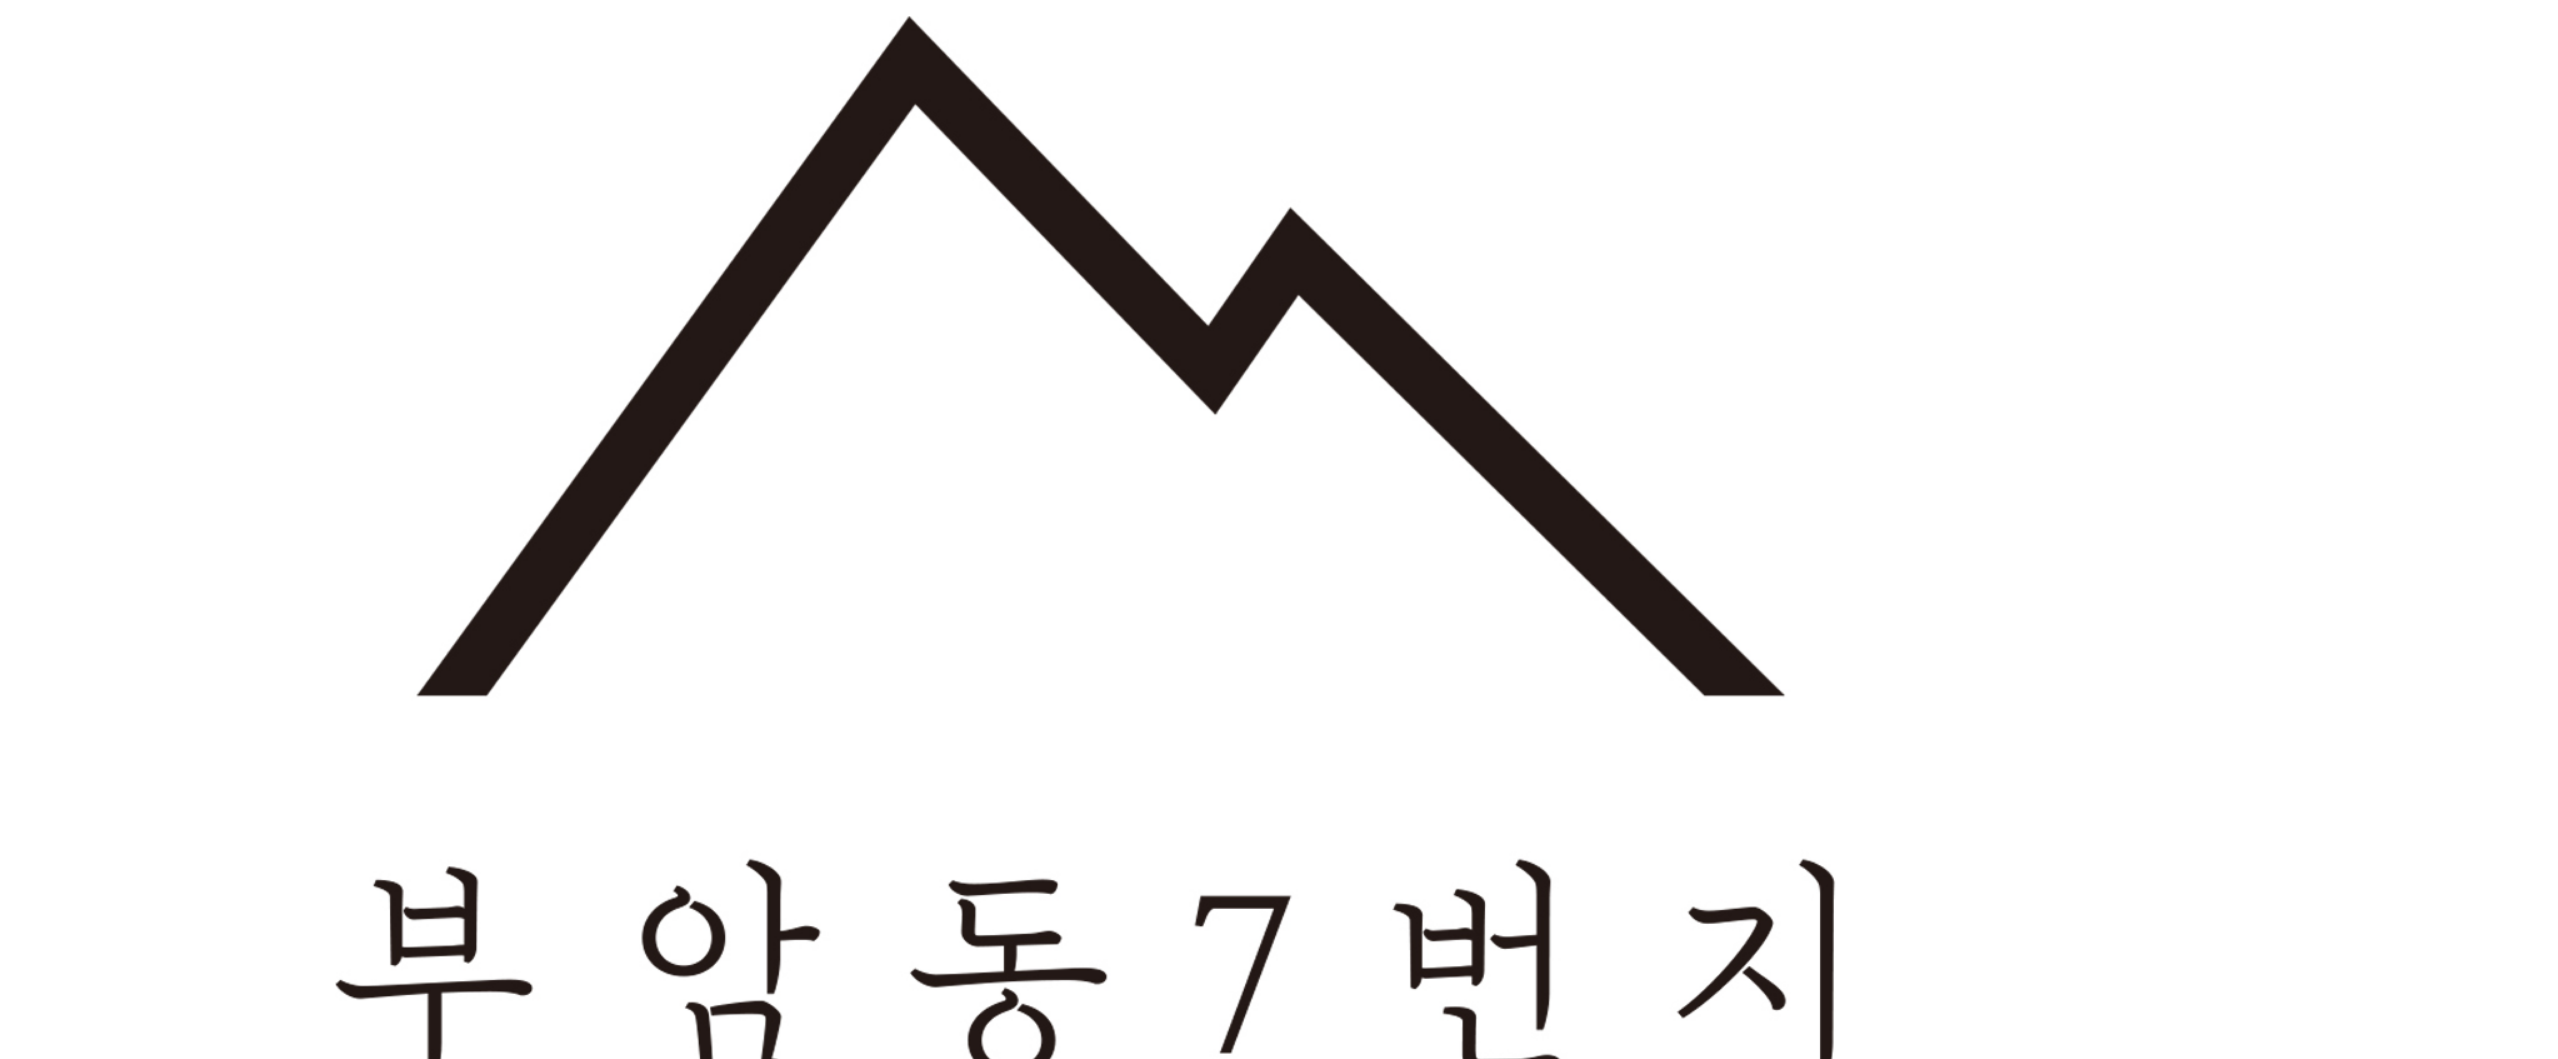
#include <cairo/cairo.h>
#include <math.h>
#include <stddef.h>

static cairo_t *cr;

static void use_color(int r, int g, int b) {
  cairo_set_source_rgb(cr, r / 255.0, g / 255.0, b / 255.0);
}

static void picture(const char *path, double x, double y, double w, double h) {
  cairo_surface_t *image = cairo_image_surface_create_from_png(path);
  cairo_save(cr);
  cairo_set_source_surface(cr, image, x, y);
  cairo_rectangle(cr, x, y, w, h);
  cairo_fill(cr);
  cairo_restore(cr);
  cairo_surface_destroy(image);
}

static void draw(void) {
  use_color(255, 255, 255);
  cairo_paint(cr);
  picture("img_01.png", 335, 16, 1501, 1043);
}

int main(void) {
  cairo_surface_t *surface = cairo_image_surface_create(CAIRO_FORMAT_RGB24, 2558, 1059);
  cr = cairo_create(surface);
  cairo_font_options_t *options = cairo_font_options_create();
  cairo_font_options_set_hint_metrics(options, CAIRO_HINT_METRICS_OFF);
  cairo_font_options_set_hint_style(options, CAIRO_HINT_STYLE_NONE);
  cairo_set_font_options(cr, options);
  cairo_set_miter_limit(cr, 4);
  draw();
  cairo_surface_write_to_png(surface, "out.png");
  cairo_font_options_destroy(options);
  cairo_destroy(cr);
  cairo_surface_destroy(surface);
  return 0;
}
